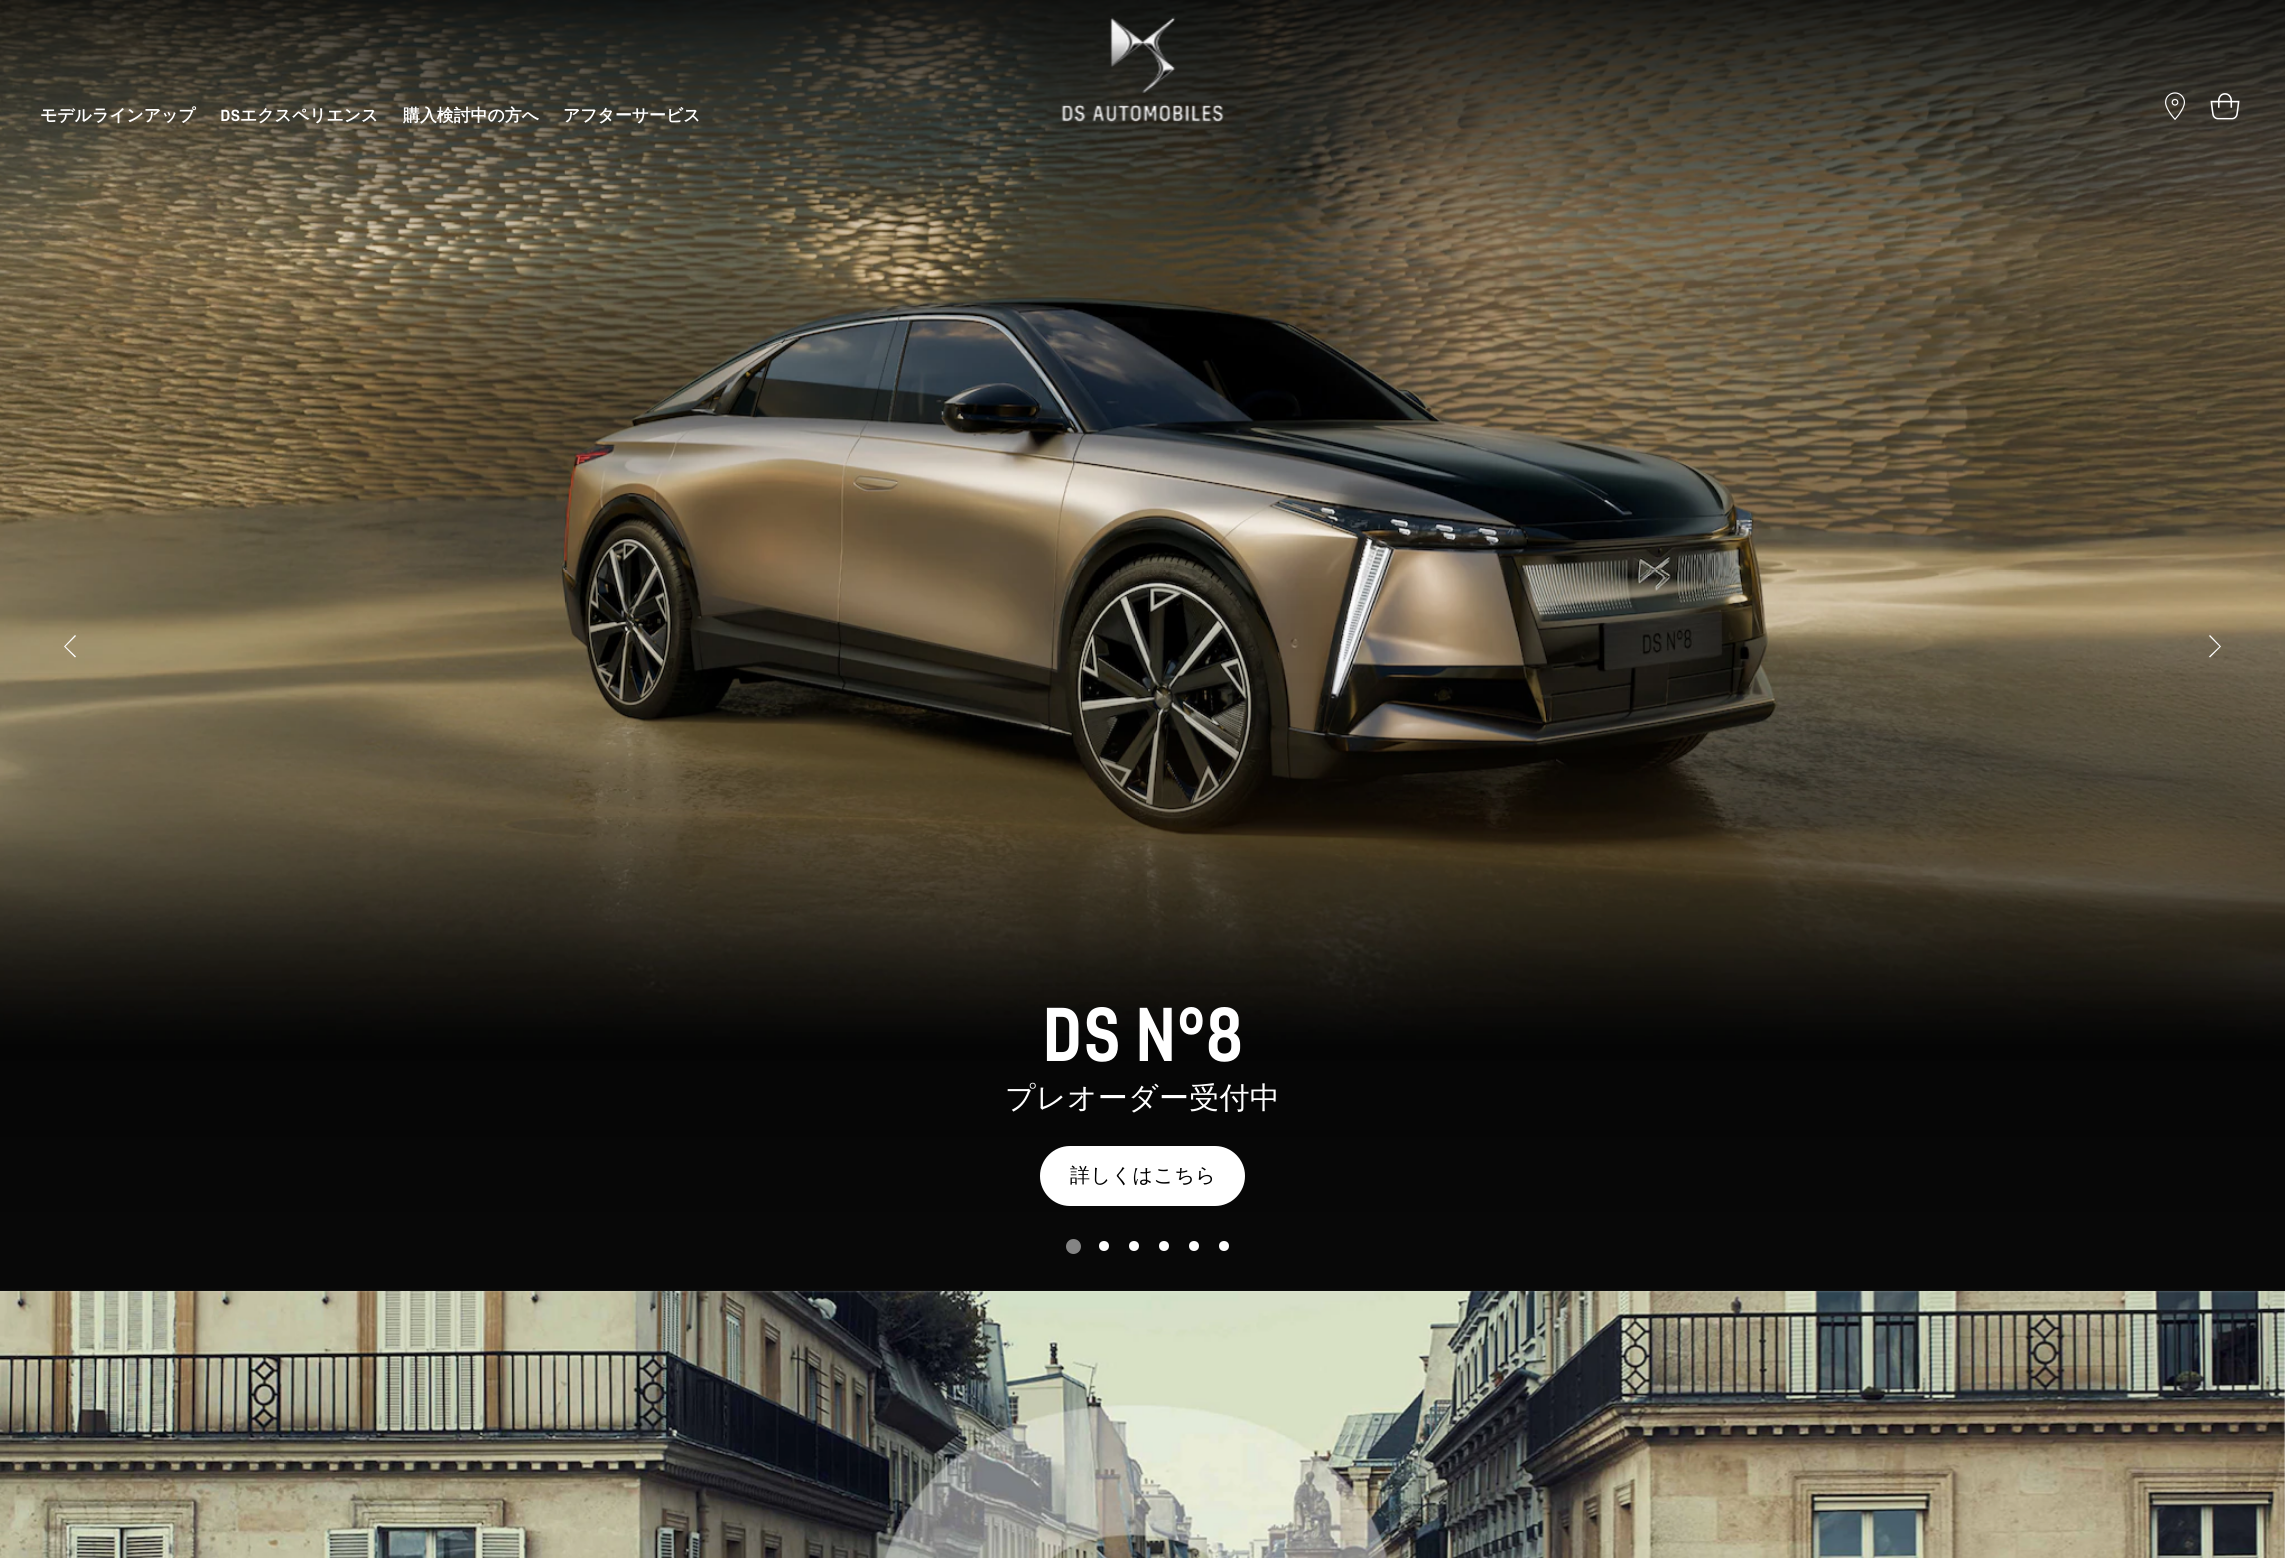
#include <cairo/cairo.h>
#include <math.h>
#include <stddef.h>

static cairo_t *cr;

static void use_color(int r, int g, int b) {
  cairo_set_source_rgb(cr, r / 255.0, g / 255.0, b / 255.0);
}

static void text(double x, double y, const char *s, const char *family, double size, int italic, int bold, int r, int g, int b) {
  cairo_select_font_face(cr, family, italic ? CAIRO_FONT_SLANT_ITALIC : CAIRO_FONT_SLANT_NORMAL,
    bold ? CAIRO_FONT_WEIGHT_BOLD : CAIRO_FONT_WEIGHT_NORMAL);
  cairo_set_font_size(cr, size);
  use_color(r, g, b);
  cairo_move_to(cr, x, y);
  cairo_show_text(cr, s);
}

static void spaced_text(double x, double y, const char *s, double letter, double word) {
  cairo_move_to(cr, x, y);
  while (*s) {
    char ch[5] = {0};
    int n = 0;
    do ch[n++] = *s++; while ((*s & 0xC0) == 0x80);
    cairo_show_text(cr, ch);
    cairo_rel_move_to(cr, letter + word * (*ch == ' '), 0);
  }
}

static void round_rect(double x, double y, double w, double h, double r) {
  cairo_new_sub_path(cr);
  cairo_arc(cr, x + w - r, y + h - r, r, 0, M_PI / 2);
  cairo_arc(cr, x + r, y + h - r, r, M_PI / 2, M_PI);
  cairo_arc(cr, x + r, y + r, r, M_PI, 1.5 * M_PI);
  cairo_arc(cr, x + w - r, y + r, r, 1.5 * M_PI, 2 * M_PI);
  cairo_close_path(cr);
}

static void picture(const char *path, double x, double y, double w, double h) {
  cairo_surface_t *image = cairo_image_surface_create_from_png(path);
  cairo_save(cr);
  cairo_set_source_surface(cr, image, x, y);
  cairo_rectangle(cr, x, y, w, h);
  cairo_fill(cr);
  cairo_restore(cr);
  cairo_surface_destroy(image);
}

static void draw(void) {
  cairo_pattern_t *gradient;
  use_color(255, 255, 255);
  cairo_paint(cr);
  picture("img_04.png", 0, 0, 2285, 1291);
  gradient = cairo_pattern_create_linear(1143, 0, 1143, 250);
  cairo_pattern_add_color_stop_rgba(gradient, 0, 0, 0, 0, 0.8);
  cairo_pattern_add_color_stop_rgba(gradient, 1, 0, 0, 0, 0);
  cairo_set_source(cr, gradient);
  cairo_pattern_destroy(gradient);
  cairo_rectangle(cr, 0, 0, 2285, 243);
  cairo_fill(cr);
  picture("img_01.png", 1061, 16, 163, 107);
  picture("img_02.png", 2165, 92, 20, 28);
  picture("img_03.png", 2210, 93, 30, 27);
  use_color(255, 255, 255);
  cairo_new_path(cr);
  cairo_move_to(cr, 75, 635);
  cairo_line_to(cr, 76, 636);
  cairo_line_to(cr, 65.5, 646.5);
  cairo_line_to(cr, 76, 656.5);
  cairo_line_to(cr, 75, 657.5);
  cairo_line_to(cr, 64, 646.5);
  cairo_close_path(cr);
  cairo_fill(cr);
  cairo_new_path(cr);
  cairo_move_to(cr, 2210, 635);
  cairo_line_to(cr, 2209, 636);
  cairo_line_to(cr, 2219.5, 646.5);
  cairo_line_to(cr, 2209, 656.5);
  cairo_line_to(cr, 2210, 657.5);
  cairo_line_to(cr, 2221, 646.5);
  cairo_close_path(cr);
  cairo_fill(cr);
  gradient = cairo_pattern_create_linear(1143, 1291, 1143, 0);
  cairo_pattern_add_color_stop_rgba(gradient, 0, 0.067, 0.067, 0.067, 0.5);
  cairo_pattern_add_color_stop_rgba(gradient, 0.5, 0.067, 0.067, 0.067, 0);
  cairo_set_source(cr, gradient);
  cairo_pattern_destroy(gradient);
  cairo_rectangle(cr, 0, 673, 2285, 617);
  cairo_fill(cr);
  use_color(255, 255, 255);
  round_rect(1040, 1146, 205, 60, 30);
  cairo_fill(cr);
  use_color(132, 132, 132);
  cairo_arc(cr, 1073.5, 1246.5, 7.5, 0, 2 * M_PI);
  cairo_fill(cr);
  use_color(255, 255, 255);
  cairo_arc(cr, 1104, 1246, 5, 0, 2 * M_PI);
  cairo_fill(cr);
  cairo_arc(cr, 1134, 1246, 5, 0, 2 * M_PI);
  cairo_fill(cr);
  cairo_arc(cr, 1164, 1246, 5, 0, 2 * M_PI);
  cairo_fill(cr);
  cairo_arc(cr, 1194, 1246, 5, 0, 2 * M_PI);
  cairo_fill(cr);
  cairo_arc(cr, 1224, 1246, 5, 0, 2 * M_PI);
  cairo_fill(cr);
  picture("img_05.png", 0, 1291, 2285, 267);
  text(40, 121, "モデルラインアップ", "WenQuanYi Zen Hei", 16.9, 0, 1, 255, 255, 255);
  text(220, 121, "DS", "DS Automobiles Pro", 16.9, 0, 1, 255, 255, 255);
  text(240, 121, "エクスペリエンス", "WenQuanYi Zen Hei", 16.9, 0, 1, 255, 255, 255);
  text(403, 121, "購入検討中の方へ", "WenQuanYi Zen Hei", 16.9, 0, 1, 255, 255, 255);
  text(563, 121, "アフターサービス", "WenQuanYi Zen Hei", 16.9, 0, 1, 255, 255, 255);
  text(1041, 1061, "DS N°8", "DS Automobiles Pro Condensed", 80, 0, 1, 255, 255, 255);
  cairo_select_font_face(cr, "WenQuanYi Zen Hei Medium", CAIRO_FONT_SLANT_NORMAL, CAIRO_FONT_WEIGHT_NORMAL);
  cairo_set_font_size(cr, 30);
  spaced_text(1005, 1108, "プレオーダー受付中", 0.25, 0);
  cairo_set_font_size(cr, 20);
  use_color(0, 0, 0);
  spaced_text(1070, 1182, "詳しくはこちら", 0.5, 0);
}

int main(void) {
  cairo_surface_t *surface = cairo_image_surface_create(CAIRO_FORMAT_RGB24, 2285, 1558);
  cr = cairo_create(surface);
  cairo_font_options_t *options = cairo_font_options_create();
  cairo_font_options_set_hint_metrics(options, CAIRO_HINT_METRICS_OFF);
  cairo_font_options_set_hint_style(options, CAIRO_HINT_STYLE_NONE);
  cairo_set_font_options(cr, options);
  cairo_set_miter_limit(cr, 4);
  draw();
  cairo_surface_write_to_png(surface, "out.png");
  cairo_font_options_destroy(options);
  cairo_destroy(cr);
  cairo_surface_destroy(surface);
  return 0;
}
